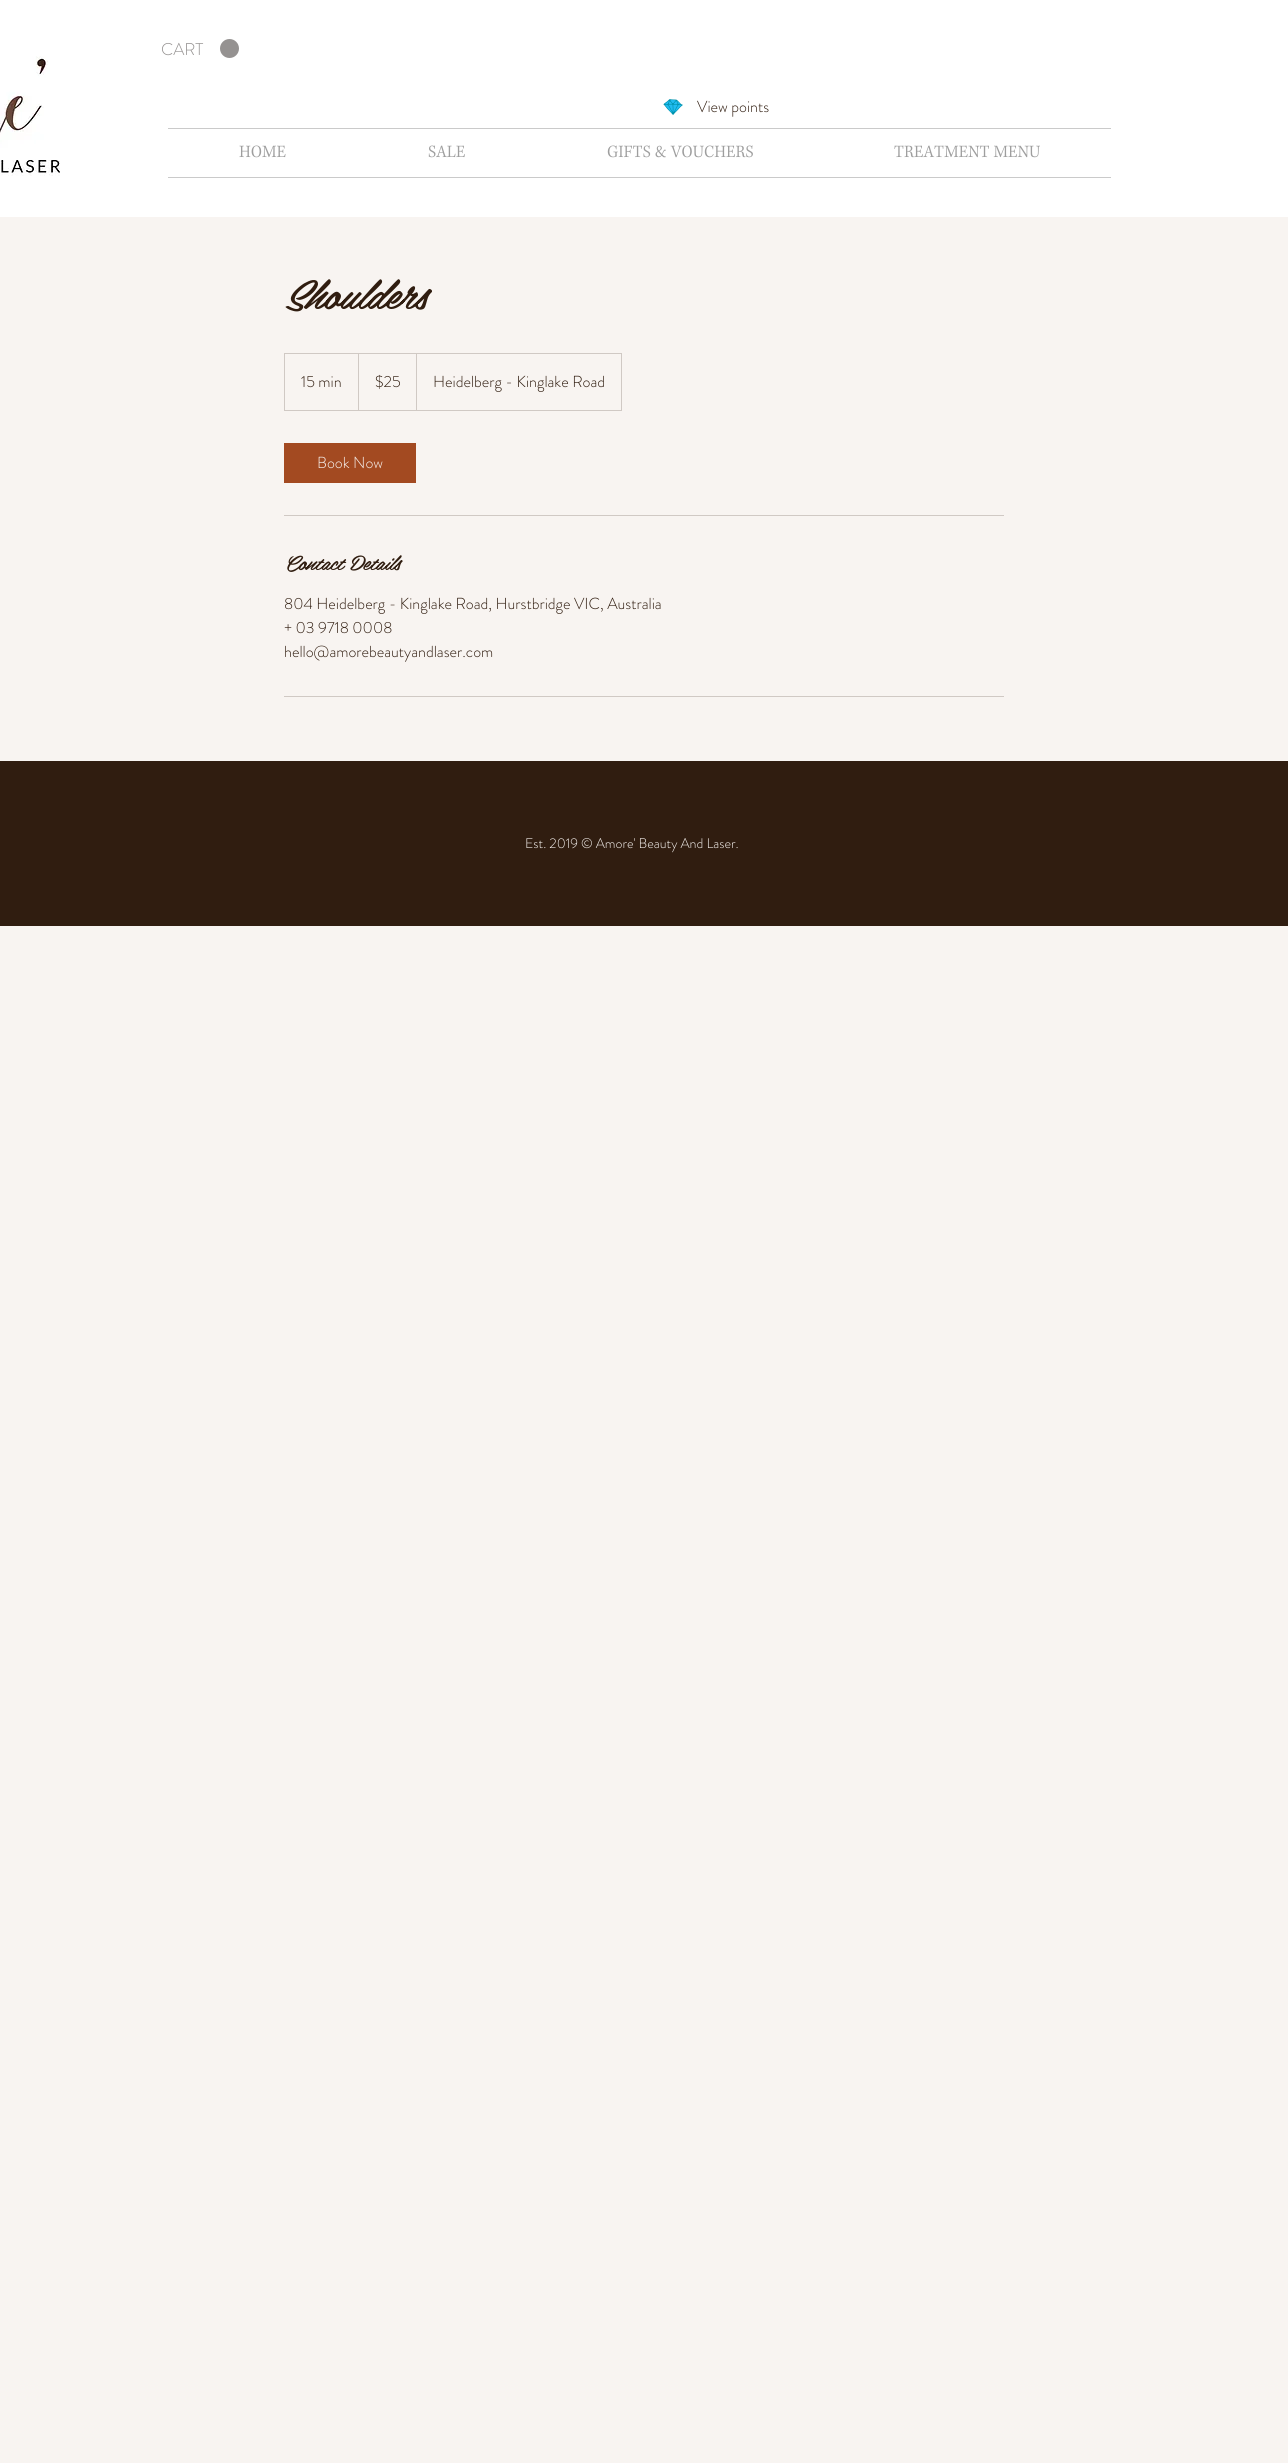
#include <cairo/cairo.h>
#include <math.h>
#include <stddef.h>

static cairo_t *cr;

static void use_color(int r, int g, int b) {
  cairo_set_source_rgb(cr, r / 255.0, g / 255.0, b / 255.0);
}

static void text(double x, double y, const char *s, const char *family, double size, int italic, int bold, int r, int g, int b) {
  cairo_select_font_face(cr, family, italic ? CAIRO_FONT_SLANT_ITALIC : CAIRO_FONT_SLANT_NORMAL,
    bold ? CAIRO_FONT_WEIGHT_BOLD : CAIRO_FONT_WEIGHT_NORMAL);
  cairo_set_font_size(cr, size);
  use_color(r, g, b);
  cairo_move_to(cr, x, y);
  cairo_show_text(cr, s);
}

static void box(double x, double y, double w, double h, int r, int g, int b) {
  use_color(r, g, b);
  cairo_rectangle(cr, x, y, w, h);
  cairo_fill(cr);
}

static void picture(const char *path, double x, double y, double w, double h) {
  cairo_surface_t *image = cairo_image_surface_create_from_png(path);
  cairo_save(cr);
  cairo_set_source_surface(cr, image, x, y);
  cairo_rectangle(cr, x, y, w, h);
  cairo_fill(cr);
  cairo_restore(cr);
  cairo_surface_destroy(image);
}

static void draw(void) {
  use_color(248, 244, 241);
  cairo_paint(cr);
  box(0, 0, 1288, 217, 255, 255, 255);
  use_color(149, 146, 145);
  cairo_arc(cr, 229.5, 48.5, 9.5, 0, 2 * M_PI);
  cairo_fill(cr);
  picture("img_01.png", 0, 56, 60, 120);
  picture("img_02.png", 663, 99, 20, 16);
  box(168, 128, 943, 1, 202, 202, 202);
  box(168, 177, 943, 1, 202, 202, 202);
  picture("img_03.png", 239, 145, 47, 13);
  picture("img_04.png", 428, 145, 37, 13);
  picture("img_05.png", 607, 145, 146, 13);
  picture("img_06.png", 894, 145, 146, 13);
  cairo_rectangle(cr, 284.5, 353.5, 337, 57);
  use_color(208, 201, 196);
  cairo_set_line_width(cr, 1);
  cairo_stroke(cr);
  cairo_new_path(cr);
  cairo_move_to(cr, 358, 410);
  cairo_line_to(cr, 358, 353);
  cairo_line_to(cr, 359, 354);
  cairo_line_to(cr, 359, 410);
  cairo_close_path(cr);
  cairo_fill(cr);
  cairo_new_path(cr);
  cairo_move_to(cr, 416, 410);
  cairo_line_to(cr, 416, 353);
  cairo_line_to(cr, 417, 354);
  cairo_line_to(cr, 417, 410);
  cairo_close_path(cr);
  cairo_fill(cr);
  box(284, 443, 132, 40, 163, 74, 33);
  box(284, 515, 720, 1, 208, 201, 196);
  box(284, 696, 720, 1, 208, 201, 196);
  box(0, 761, 1288, 165, 48, 29, 16);
  text(161, 55, "CART", "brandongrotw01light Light", 17, 0, 0, 149, 146, 145);
  text(697, 112, "View points", "brandongrotw01light Light", 16, 0, 0, 48, 29, 16);
  text(284, 309, "Shoulders", "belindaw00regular", 40, 1, 0, 48, 29, 16);
  text(301, 387, "15 min", "brandongrotw01light Light", 16, 0, 0, 48, 29, 16);
  text(375, 387, "$25", "brandongrotw01light Light", 16, 0, 0, 48, 29, 16);
  text(433, 387, "Heidelberg - Kinglake Road", "brandongrotw01light Light", 16, 0, 0, 48, 29, 16);
  text(317, 468, "Book Now", "brandongrotw01light Light", 16, 0, 0, 248, 244, 241);
  text(284, 570, "Contact Details", "belindaw00regular", 20, 1, 0, 48, 29, 16);
  text(284, 609, "804 Heidelberg - Kinglake Road, Hurstbridge VIC, Australia", "brandongrotw01light Light", 16, 0, 0, 48, 29, 16);
  text(284, 633, "+ 03 9718 0008", "brandongrotw01light Light", 16, 0, 0, 48, 29, 16);
  text(284, 657, "hello@amorebeautyandlaser.com", "brandongrotw01light Light", 16, 0, 0, 48, 29, 16);
  text(525, 848, "Est. 2019 © Amore' Beauty And Laser.", "brandongrotw01light Light", 14, 0, 0, 248, 244, 241);
}

int main(void) {
  cairo_surface_t *surface = cairo_image_surface_create(CAIRO_FORMAT_RGB24, 1288, 2463);
  cr = cairo_create(surface);
  cairo_font_options_t *options = cairo_font_options_create();
  cairo_font_options_set_hint_metrics(options, CAIRO_HINT_METRICS_OFF);
  cairo_font_options_set_hint_style(options, CAIRO_HINT_STYLE_NONE);
  cairo_set_font_options(cr, options);
  cairo_set_miter_limit(cr, 4);
  draw();
  cairo_surface_write_to_png(surface, "out.png");
  cairo_font_options_destroy(options);
  cairo_destroy(cr);
  cairo_surface_destroy(surface);
  return 0;
}
